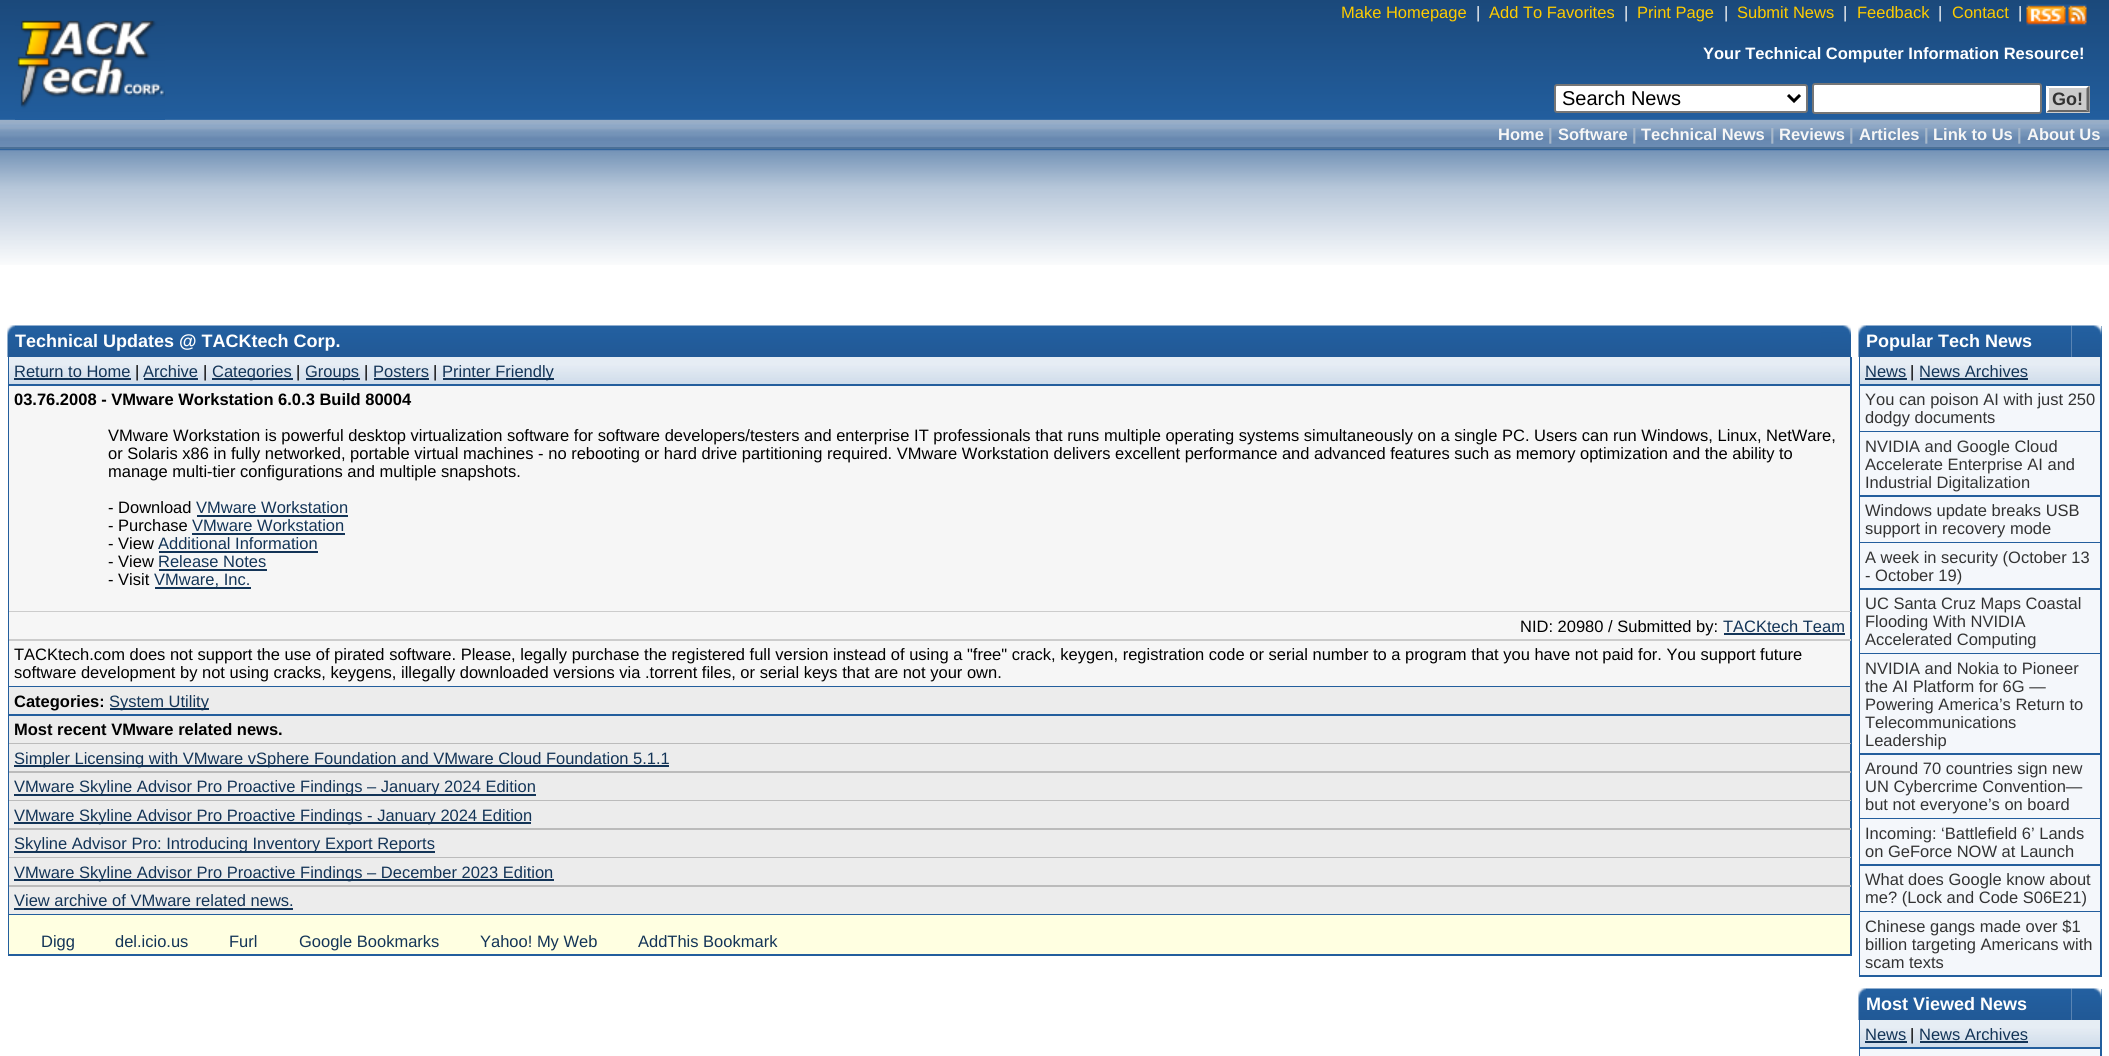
#include <cairo/cairo.h>
#include <math.h>
#include <stddef.h>

static cairo_t *cr;

static void use_color(int r, int g, int b) {
  cairo_set_source_rgb(cr, r / 255.0, g / 255.0, b / 255.0);
}

static void text(double x, double y, const char *s, const char *family, double size, int italic, int bold, int r, int g, int b) {
  cairo_select_font_face(cr, family, italic ? CAIRO_FONT_SLANT_ITALIC : CAIRO_FONT_SLANT_NORMAL,
    bold ? CAIRO_FONT_WEIGHT_BOLD : CAIRO_FONT_WEIGHT_NORMAL);
  cairo_set_font_size(cr, size);
  use_color(r, g, b);
  cairo_move_to(cr, x, y);
  cairo_show_text(cr, s);
}

static void box(double x, double y, double w, double h, int r, int g, int b) {
  use_color(r, g, b);
  cairo_rectangle(cr, x, y, w, h);
  cairo_fill(cr);
}

static void round_rect(double x, double y, double w, double h, double r) {
  cairo_new_sub_path(cr);
  cairo_arc(cr, x + w - r, y + h - r, r, 0, M_PI / 2);
  cairo_arc(cr, x + r, y + h - r, r, M_PI / 2, M_PI);
  cairo_arc(cr, x + r, y + r, r, M_PI, 1.5 * M_PI);
  cairo_arc(cr, x + w - r, y + r, r, 1.5 * M_PI, 2 * M_PI);
  cairo_close_path(cr);
}

static void picture(const char *path, double x, double y, double w, double h) {
  cairo_surface_t *image = cairo_image_surface_create_from_png(path);
  cairo_save(cr);
  cairo_set_source_surface(cr, image, x, y);
  cairo_rectangle(cr, x, y, w, h);
  cairo_fill(cr);
  cairo_restore(cr);
  cairo_surface_destroy(image);
}

static void draw(void) {
  use_color(255, 255, 255);
  cairo_paint(cr);
  picture("img_01.png", 0, 0, 2109, 265);
  picture("img_02.png", 2026, 4, 61, 22);
  picture("img_03.png", 15, 20, 150, 100);
  use_color(255, 255, 255);
  round_rect(1555, 85, 252, 27, 2);
  cairo_fill_preserve(cr);
  use_color(118, 118, 118);
  cairo_stroke(cr);
  cairo_new_path(cr);
  cairo_move_to(cr, 1788, 95);
  cairo_line_to(cr, 1794, 101);
  cairo_line_to(cr, 1800, 95);
  use_color(0, 0, 0);
  cairo_set_line_width(cr, 3);
  cairo_stroke(cr);
  use_color(255, 255, 255);
  round_rect(1813, 84, 228, 29, 2);
  cairo_fill_preserve(cr);
  use_color(118, 118, 118);
  cairo_set_line_width(cr, 2);
  cairo_stroke(cr);
  box(2046, 86, 44, 27, 204, 204, 204);
  use_color(255, 255, 255);
  cairo_new_path(cr);
  cairo_move_to(cr, 2046, 86);
  cairo_line_to(cr, 2090, 86);
  cairo_line_to(cr, 2086, 88);
  cairo_line_to(cr, 2049, 88);
  cairo_close_path(cr);
  cairo_fill(cr);
  use_color(102, 102, 102);
  cairo_new_path(cr);
  cairo_move_to(cr, 2089.5, 85.5);
  cairo_line_to(cr, 2089.5, 112.5);
  cairo_line_to(cr, 2086.5, 109.5);
  cairo_line_to(cr, 2086.5, 88.5);
  cairo_close_path(cr);
  cairo_fill(cr);
  cairo_new_path(cr);
  cairo_move_to(cr, 2090, 112);
  cairo_line_to(cr, 2046, 112);
  cairo_line_to(cr, 2049, 110);
  cairo_line_to(cr, 2086, 110);
  cairo_close_path(cr);
  cairo_fill(cr);
  use_color(255, 255, 255);
  cairo_new_path(cr);
  cairo_move_to(cr, 2046, 112.5);
  cairo_line_to(cr, 2046, 85.5);
  cairo_line_to(cr, 2049, 88.5);
  cairo_line_to(cr, 2049, 109.5);
  cairo_close_path(cr);
  cairo_fill(cr);
  picture("img_04.png", 0, 120, 2109, 27);
  box(0, 147, 2109, 2, 75, 112, 150);
  picture("img_05.png", 7, 325, 8, 32);
  picture("img_06.png", 15, 325, 1806, 32);
  picture("img_07.png", 1821, 325, 30, 32);
  box(8, 357, 1, 599, 35, 94, 157);
  picture("img_08.png", 9, 357, 1841, 27);
  box(1850, 357, 2, 599, 35, 94, 157);
  box(9, 384, 1842, 2, 35, 94, 157);
  box(14, 378, 117, 2, 19, 52, 87);
  box(144, 378, 54, 2, 19, 52, 87);
  box(212, 378, 81, 2, 19, 52, 87);
  box(306, 378, 54, 2, 19, 52, 87);
  box(374, 378, 55, 2, 19, 52, 87);
  box(443, 378, 111, 2, 19, 52, 87);
  box(9, 386, 1841, 225, 246, 246, 246);
  box(9, 611, 1842, 1, 204, 204, 204);
  box(197, 515, 151, 2, 19, 52, 87);
  box(192, 533, 153, 2, 19, 52, 87);
  box(159, 551, 159, 2, 19, 52, 87);
  box(159, 569, 108, 2, 19, 52, 87);
  box(155, 587, 96, 2, 19, 52, 87);
  box(9, 612, 1841, 27, 246, 246, 246);
  box(9, 639, 1842, 2, 204, 204, 204);
  box(1724, 633, 121, 2, 19, 52, 87);
  box(9, 641, 1841, 45, 246, 246, 246);
  box(9, 686, 1842, 1, 35, 94, 157);
  box(9, 687, 1841, 27, 236, 236, 236);
  box(9, 714, 1842, 2, 35, 94, 157);
  box(110, 708, 99, 2, 19, 52, 87);
  box(9, 716, 1841, 27, 236, 236, 236);
  box(9, 743, 1842, 1, 187, 187, 187);
  box(9, 744, 1841, 27, 236, 236, 236);
  box(9, 771, 1842, 2, 187, 187, 187);
  box(14, 765, 655, 2, 19, 52, 87);
  box(9, 773, 1841, 27, 236, 236, 236);
  box(9, 800, 1842, 1, 187, 187, 187);
  box(14, 794, 522, 2, 19, 52, 87);
  box(9, 801, 1841, 27, 236, 236, 236);
  box(9, 828, 1842, 2, 187, 187, 187);
  box(14, 822, 517, 2, 19, 52, 87);
  box(9, 830, 1841, 27, 236, 236, 236);
  box(9, 857, 1842, 1, 187, 187, 187);
  box(14, 851, 421, 2, 19, 52, 87);
  box(9, 858, 1841, 27, 236, 236, 236);
  box(9, 885, 1842, 2, 187, 187, 187);
  box(14, 879, 540, 2, 19, 52, 87);
  box(9, 887, 1841, 27, 236, 236, 236);
  box(9, 914, 1842, 1, 35, 94, 157);
  box(14, 908, 279, 2, 19, 52, 87);
  box(9, 915, 1841, 39, 255, 255, 225);
  box(9, 954, 1842, 2, 35, 94, 157);
  picture("img_05.png", 1858, 325, 8, 32);
  picture("img_09.png", 1866, 325, 206, 32);
  box(2101, 326, 1, 31, 35, 94, 157);
  picture("img_10.png", 2071, 325, 31, 32);
  box(1859, 357, 1, 29, 35, 94, 157);
  picture("img_11.png", 1860, 357, 240, 27);
  box(2100, 357, 2, 620, 35, 94, 157);
  box(1860, 384, 242, 2, 35, 94, 157);
  box(1865, 378, 42, 2, 19, 52, 87);
  box(1920, 378, 108, 2, 19, 52, 87);
  box(1859, 431, 243, 1, 35, 94, 157);
  box(1859, 386, 2, 46, 35, 94, 157);
  box(1860, 386, 240, 45, 244, 247, 251);
  box(1859, 495, 243, 2, 35, 94, 157);
  box(1859, 432, 2, 65, 35, 94, 157);
  box(1860, 432, 240, 63, 244, 247, 251);
  box(1859, 542, 243, 1, 35, 94, 157);
  box(1859, 497, 2, 46, 35, 94, 157);
  box(1860, 497, 240, 45, 244, 247, 251);
  box(1859, 588, 243, 2, 35, 94, 157);
  box(1859, 543, 2, 47, 35, 94, 157);
  box(1860, 543, 240, 45, 244, 247, 251);
  box(1859, 653, 243, 1, 35, 94, 157);
  box(1859, 590, 2, 64, 35, 94, 157);
  box(1860, 590, 240, 63, 244, 247, 251);
  box(1859, 753, 243, 2, 35, 94, 157);
  box(1859, 654, 2, 101, 35, 94, 157);
  box(1860, 654, 240, 99, 244, 247, 251);
  box(1859, 818, 243, 1, 35, 94, 157);
  box(1859, 755, 2, 64, 35, 94, 157);
  box(1860, 755, 240, 63, 244, 247, 251);
  box(1859, 864, 243, 2, 35, 94, 157);
  box(1859, 819, 2, 47, 35, 94, 157);
  box(1860, 819, 240, 45, 244, 247, 251);
  box(1859, 911, 243, 1, 35, 94, 157);
  box(1859, 866, 2, 46, 35, 94, 157);
  box(1860, 866, 240, 45, 244, 247, 251);
  box(1859, 975, 243, 2, 35, 94, 157);
  box(1859, 912, 2, 65, 35, 94, 157);
  box(1860, 912, 240, 63, 244, 247, 251);
  picture("img_05.png", 1858, 988, 8, 32);
  picture("img_12.png", 1866, 988, 206, 32);
  box(2101, 989, 1, 31, 35, 94, 157);
  picture("img_10.png", 2071, 988, 31, 32);
  box(1859, 1020, 1, 36, 35, 94, 157);
  picture("img_11.png", 1860, 1020, 240, 27);
  box(2100, 1020, 2, 36, 35, 94, 157);
  box(1860, 1047, 242, 2, 35, 94, 157);
  box(1865, 1041, 42, 2, 19, 52, 87);
  box(1920, 1041, 108, 2, 19, 52, 87);
  box(1860, 1049, 240, 7, 244, 247, 251);
  text(1341, 18, "Make Homepage", "Liberation Sans", 16.5, 0, 0, 255, 204, 0);
  text(1476, 18, "|", "Liberation Sans", 16.5, 0, 0, 246, 246, 246);
  text(1489, 18, "Add To Favorites", "Liberation Sans", 16.5, 0, 0, 255, 204, 0);
  text(1624, 18, "|", "Liberation Sans", 16.5, 0, 0, 246, 246, 246);
  text(1637, 18, "Print Page", "Liberation Sans", 16.5, 0, 0, 255, 204, 0);
  text(1724, 18, "|", "Liberation Sans", 16.5, 0, 0, 246, 246, 246);
  text(1737, 18, "Submit News", "Liberation Sans", 16.5, 0, 0, 255, 204, 0);
  text(1843, 18, "|", "Liberation Sans", 16.5, 0, 0, 246, 246, 246);
  text(1857, 18, "Feedback", "Liberation Sans", 16.5, 0, 0, 255, 204, 0);
  text(1938, 18, "|", "Liberation Sans", 16.5, 0, 0, 246, 246, 246);
  text(1952, 18, "Contact", "Liberation Sans", 16.5, 0, 0, 255, 204, 0);
  text(2018, 18, "|", "Liberation Sans", 16.5, 0, 0, 246, 246, 246);
  text(1703, 59, "Your Technical Computer Information Resource!", "Liberation Sans", 16.5, 0, 1, 255, 255, 255);
  text(1562, 105, "Search News", "Liberation Sans", 20, 0, 0, 0, 0, 0);
  text(2052, 105, "Go!", "Liberation Sans", 18, 0, 1, 51, 51, 51);
  text(1498, 140, "Home", "Liberation Sans", 16.5, 0, 1, 246, 246, 246);
  text(1548, 140, "|", "Liberation Sans", 16.5, 0, 1, 168, 184, 202);
  text(1558, 140, "Software", "Liberation Sans", 16.5, 0, 1, 246, 246, 246);
  text(1632, 140, "|", "Liberation Sans", 16.5, 0, 1, 168, 184, 202);
  text(1641, 140, "Technical News", "Liberation Sans", 16.5, 0, 1, 246, 246, 246);
  text(1770, 140, "|", "Liberation Sans", 16.5, 0, 1, 168, 184, 202);
  text(1779, 140, "Reviews", "Liberation Sans", 16.5, 0, 1, 246, 246, 246);
  text(1849, 140, "|", "Liberation Sans", 16.5, 0, 1, 168, 184, 202);
  text(1859, 140, "Articles", "Liberation Sans", 16.5, 0, 1, 246, 246, 246);
  text(1924, 140, "|", "Liberation Sans", 16.5, 0, 1, 168, 184, 202);
  text(1933, 140, "Link to Us", "Liberation Sans", 16.5, 0, 1, 246, 246, 246);
  text(2017, 140, "|", "Liberation Sans", 16.5, 0, 1, 168, 184, 202);
  text(2027, 140, "About Us", "Liberation Sans", 16.5, 0, 1, 246, 246, 246);
  text(15, 347, "Technical Updates @ TACKtech Corp.", "Liberation Sans", 18, 0, 1, 255, 255, 255);
  text(14, 377, "Return to Home", "Liberation Sans", 16.5, 0, 0, 19, 52, 87);
  text(135, 377, "|", "Liberation Sans", 16.5, 0, 0, 0, 0, 0);
  text(143, 377, "Archive", "Liberation Sans", 16.5, 0, 0, 19, 52, 87);
  text(203, 377, "|", "Liberation Sans", 16.5, 0, 0, 0, 0, 0);
  text(212, 377, "Categories", "Liberation Sans", 16.5, 0, 0, 19, 52, 87);
  text(296, 377, "|", "Liberation Sans", 16.5, 0, 0, 0, 0, 0);
  text(305, 377, "Groups", "Liberation Sans", 16.5, 0, 0, 19, 52, 87);
  text(364, 377, "|", "Liberation Sans", 16.5, 0, 0, 0, 0, 0);
  text(373, 377, "Posters", "Liberation Sans", 16.5, 0, 0, 19, 52, 87);
  text(433, 377, "|", "Liberation Sans", 16.5, 0, 0, 0, 0, 0);
  text(442, 377, "Printer Friendly", "Liberation Sans", 16.5, 0, 0, 19, 52, 87);
  text(14, 405, "03.76.2008 - VMware Workstation 6.0.3 Build 80004", "Liberation Sans", 16.5, 0, 1, 0, 0, 0);
  text(108, 441, "VMware Workstation is powerful desktop virtualization software for software developers/testers and enterprise IT professionals that runs multiple operating systems simultaneously on a single PC. Users can run Windows, Linux, NetWare,", "Liberation Sans", 16.5, 0, 0, 0, 0, 0);
  text(108, 459, "or Solaris x86 in fully networked, portable virtual machines - no rebooting or hard drive partitioning required. VMware Workstation delivers excellent performance and advanced features such as memory optimization and the ability to", "Liberation Sans", 16.5, 0, 0, 0, 0, 0);
  text(108, 477, "manage multi-tier configurations and multiple snapshots.", "Liberation Sans", 16.5, 0, 0, 0, 0, 0);
  text(108, 513, "- Download", "Liberation Sans", 16.5, 0, 0, 0, 0, 0);
  text(196, 513, "VMware Workstation", "Liberation Sans", 16.5, 0, 0, 19, 52, 87);
  text(108, 531, "- Purchase", "Liberation Sans", 16.5, 0, 0, 0, 0, 0);
  text(192, 531, "VMware Workstation", "Liberation Sans", 16.5, 0, 0, 19, 52, 87);
  text(108, 549, "- View", "Liberation Sans", 16.5, 0, 0, 0, 0, 0);
  text(158, 549, "Additional Information", "Liberation Sans", 16.5, 0, 0, 19, 52, 87);
  text(108, 567, "- View", "Liberation Sans", 16.5, 0, 0, 0, 0, 0);
  text(158, 567, "Release Notes", "Liberation Sans", 16.5, 0, 0, 19, 52, 87);
  text(108, 585, "- Visit", "Liberation Sans", 16.5, 0, 0, 0, 0, 0);
  text(154, 585, "VMware, Inc.", "Liberation Sans", 16.5, 0, 0, 19, 52, 87);
  text(1520, 632, "NID: 20980 / Submitted by:", "Liberation Sans", 16.5, 0, 0, 0, 0, 0);
  text(1723, 632, "TACKtech Team", "Liberation Sans", 16.5, 0, 0, 19, 52, 87);
  text(14, 660, "TACKtech.com does not support the use of pirated software. Please, legally purchase the registered full version instead of using a \"free\" crack, keygen, registration code or serial number to a program that you have not paid for. You support future", "Liberation Sans", 16.5, 0, 0, 0, 0, 0);
  text(14, 678, "software development by not using cracks, keygens, illegally downloaded versions via .torrent files, or serial keys that are not your own.", "Liberation Sans", 16.5, 0, 0, 0, 0, 0);
  text(14, 707, "Categories:", "Liberation Sans", 16.5, 0, 1, 0, 0, 0);
  text(109, 707, "System Utility", "Liberation Sans", 16.5, 0, 0, 19, 52, 87);
  text(14, 735, "Most recent VMware related news.", "Liberation Sans", 16.5, 0, 1, 0, 0, 0);
  text(14, 764, "Simpler Licensing with VMware vSphere Foundation and VMware Cloud Foundation 5.1.1", "Liberation Sans", 16.5, 0, 0, 19, 52, 87);
  text(14, 792, "VMware Skyline Advisor Pro Proactive Findings – January 2024 Edition", "Liberation Sans", 16.5, 0, 0, 19, 52, 87);
  text(14, 821, "VMware Skyline Advisor Pro Proactive Findings - January 2024 Edition", "Liberation Sans", 16.5, 0, 0, 19, 52, 87);
  text(14, 849, "Skyline Advisor Pro: Introducing Inventory Export Reports", "Liberation Sans", 16.5, 0, 0, 19, 52, 87);
  text(14, 878, "VMware Skyline Advisor Pro Proactive Findings – December 2023 Edition", "Liberation Sans", 16.5, 0, 0, 19, 52, 87);
  text(14, 906, "View archive of VMware related news.", "Liberation Sans", 16.5, 0, 0, 19, 52, 87);
  text(41, 947, "Digg", "Liberation Sans", 16.5, 0, 0, 19, 52, 87);
  text(115, 947, "del.icio.us", "Liberation Sans", 16.5, 0, 0, 19, 52, 87);
  text(229, 947, "Furl", "Liberation Sans", 16.5, 0, 0, 19, 52, 87);
  text(299, 947, "Google Bookmarks", "Liberation Sans", 16.5, 0, 0, 19, 52, 87);
  text(480, 947, "Yahoo! My Web", "Liberation Sans", 16.5, 0, 0, 19, 52, 87);
  text(638, 947, "AddThis Bookmark", "Liberation Sans", 16.5, 0, 0, 19, 52, 87);
  text(1866, 347, "Popular Tech News", "Liberation Sans", 18, 0, 1, 255, 255, 255);
  text(1865, 377, "News", "Liberation Sans", 16.5, 0, 0, 19, 52, 87);
  text(1910, 377, "|", "Liberation Sans", 16.5, 0, 0, 0, 0, 0);
  text(1919, 377, "News Archives", "Liberation Sans", 16.5, 0, 0, 19, 52, 87);
  text(1865, 405, "You can poison AI with just 250", "Liberation Sans", 16.5, 0, 0, 51, 51, 51);
  text(1865, 423, "dodgy documents", "Liberation Sans", 16.5, 0, 0, 51, 51, 51);
  text(1865, 452, "NVIDIA and Google Cloud", "Liberation Sans", 16.5, 0, 0, 51, 51, 51);
  text(1865, 470, "Accelerate Enterprise AI and", "Liberation Sans", 16.5, 0, 0, 51, 51, 51);
  text(1865, 488, "Industrial Digitalization", "Liberation Sans", 16.5, 0, 0, 51, 51, 51);
  text(1865, 516, "Windows update breaks USB", "Liberation Sans", 16.5, 0, 0, 51, 51, 51);
  text(1865, 534, "support in recovery mode", "Liberation Sans", 16.5, 0, 0, 51, 51, 51);
  text(1865, 563, "A week in security (October 13", "Liberation Sans", 16.5, 0, 0, 51, 51, 51);
  text(1865, 581, "- October 19)", "Liberation Sans", 16.5, 0, 0, 51, 51, 51);
  text(1865, 609, "UC Santa Cruz Maps Coastal", "Liberation Sans", 16.5, 0, 0, 51, 51, 51);
  text(1865, 627, "Flooding With NVIDIA", "Liberation Sans", 16.5, 0, 0, 51, 51, 51);
  text(1865, 645, "Accelerated Computing", "Liberation Sans", 16.5, 0, 0, 51, 51, 51);
  text(1865, 674, "NVIDIA and Nokia to Pioneer", "Liberation Sans", 16.5, 0, 0, 51, 51, 51);
  text(1865, 692, "the AI Platform for 6G —", "Liberation Sans", 16.5, 0, 0, 51, 51, 51);
  text(1865, 710, "Powering America’s Return to", "Liberation Sans", 16.5, 0, 0, 51, 51, 51);
  text(1865, 728, "Telecommunications", "Liberation Sans", 16.5, 0, 0, 51, 51, 51);
  text(1865, 746, "Leadership", "Liberation Sans", 16.5, 0, 0, 51, 51, 51);
  text(1865, 774, "Around 70 countries sign new", "Liberation Sans", 16.5, 0, 0, 51, 51, 51);
  text(1865, 792, "UN Cybercrime Convention—", "Liberation Sans", 16.5, 0, 0, 51, 51, 51);
  text(1865, 810, "but not everyone’s on board", "Liberation Sans", 16.5, 0, 0, 51, 51, 51);
  text(1865, 839, "Incoming: ‘Battlefield 6’ Lands", "Liberation Sans", 16.5, 0, 0, 51, 51, 51);
  text(1865, 857, "on GeForce NOW at Launch", "Liberation Sans", 16.5, 0, 0, 51, 51, 51);
  text(1865, 885, "What does Google know about", "Liberation Sans", 16.5, 0, 0, 51, 51, 51);
  text(1865, 903, "me? (Lock and Code S06E21)", "Liberation Sans", 16.5, 0, 0, 51, 51, 51);
  text(1865, 932, "Chinese gangs made over $1", "Liberation Sans", 16.5, 0, 0, 51, 51, 51);
  text(1865, 950, "billion targeting Americans with", "Liberation Sans", 16.5, 0, 0, 51, 51, 51);
  text(1865, 968, "scam texts", "Liberation Sans", 16.5, 0, 0, 51, 51, 51);
  text(1866, 1010, "Most Viewed News", "Liberation Sans", 18, 0, 1, 255, 255, 255);
  text(1865, 1040, "News", "Liberation Sans", 16.5, 0, 0, 19, 52, 87);
  text(1910, 1040, "|", "Liberation Sans", 16.5, 0, 0, 0, 0, 0);
  text(1919, 1040, "News Archives", "Liberation Sans", 16.5, 0, 0, 19, 52, 87);
}

int main(void) {
  cairo_surface_t *surface = cairo_image_surface_create(CAIRO_FORMAT_RGB24, 2109, 1056);
  cr = cairo_create(surface);
  cairo_font_options_t *options = cairo_font_options_create();
  cairo_font_options_set_hint_metrics(options, CAIRO_HINT_METRICS_OFF);
  cairo_font_options_set_hint_style(options, CAIRO_HINT_STYLE_NONE);
  cairo_set_font_options(cr, options);
  cairo_set_miter_limit(cr, 4);
  draw();
  cairo_surface_write_to_png(surface, "out.png");
  cairo_font_options_destroy(options);
  cairo_destroy(cr);
  cairo_surface_destroy(surface);
  return 0;
}
